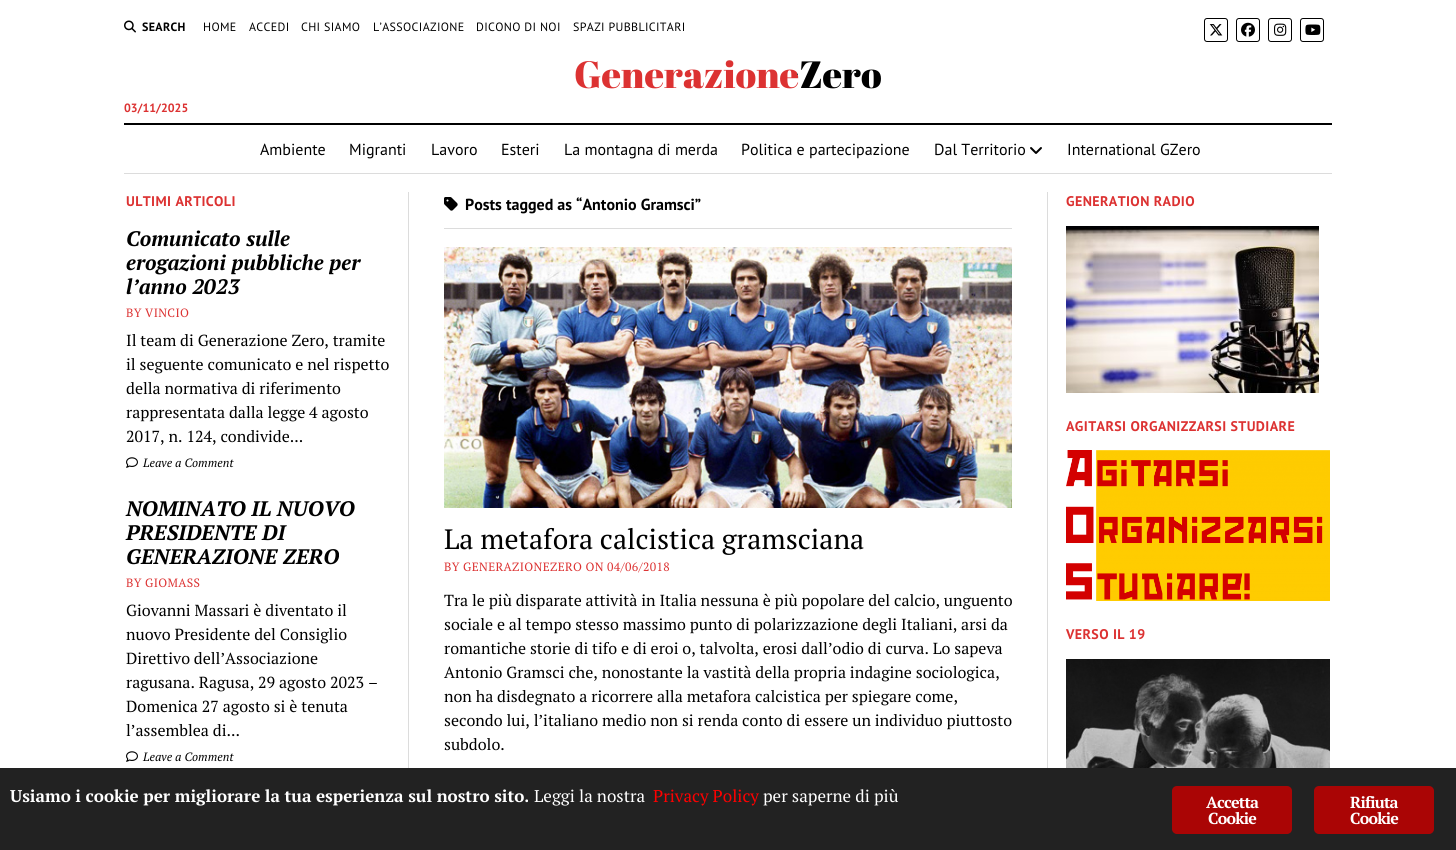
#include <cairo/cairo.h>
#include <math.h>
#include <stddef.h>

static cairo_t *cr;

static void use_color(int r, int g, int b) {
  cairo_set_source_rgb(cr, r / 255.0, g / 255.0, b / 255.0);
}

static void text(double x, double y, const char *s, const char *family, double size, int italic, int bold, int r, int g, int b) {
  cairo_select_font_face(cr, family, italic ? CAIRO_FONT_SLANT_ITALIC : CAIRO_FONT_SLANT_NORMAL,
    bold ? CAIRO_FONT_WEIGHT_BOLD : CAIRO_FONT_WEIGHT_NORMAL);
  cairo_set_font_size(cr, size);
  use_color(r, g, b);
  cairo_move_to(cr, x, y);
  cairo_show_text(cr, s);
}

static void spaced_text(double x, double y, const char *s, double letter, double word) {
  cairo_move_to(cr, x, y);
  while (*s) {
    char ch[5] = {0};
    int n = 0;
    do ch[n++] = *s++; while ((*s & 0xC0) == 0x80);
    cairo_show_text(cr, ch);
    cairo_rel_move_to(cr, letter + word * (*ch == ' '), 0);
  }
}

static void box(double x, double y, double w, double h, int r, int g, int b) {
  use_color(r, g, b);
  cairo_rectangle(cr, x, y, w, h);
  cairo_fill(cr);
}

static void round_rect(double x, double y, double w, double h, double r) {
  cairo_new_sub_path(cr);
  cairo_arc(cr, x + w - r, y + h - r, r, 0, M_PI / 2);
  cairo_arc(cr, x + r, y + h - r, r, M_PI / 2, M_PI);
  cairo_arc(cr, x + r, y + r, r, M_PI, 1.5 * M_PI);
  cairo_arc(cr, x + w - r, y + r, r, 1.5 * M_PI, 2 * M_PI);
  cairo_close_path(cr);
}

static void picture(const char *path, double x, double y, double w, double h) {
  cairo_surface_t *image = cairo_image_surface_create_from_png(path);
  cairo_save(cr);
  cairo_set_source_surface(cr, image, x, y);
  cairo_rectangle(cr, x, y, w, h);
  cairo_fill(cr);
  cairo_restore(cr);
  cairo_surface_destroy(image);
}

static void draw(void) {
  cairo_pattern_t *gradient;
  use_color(255, 255, 255);
  cairo_paint(cr);
  picture("img_01.png", 124, 20, 12, 13);
  round_rect(1204.5, 18.5, 23, 23, 2.5);
  use_color(0, 0, 0);
  cairo_set_line_width(cr, 1);
  cairo_stroke(cr);
  picture("img_02.png", 1209, 24, 14, 12);
  round_rect(1236.5, 18.5, 23, 23, 2.5);
  cairo_stroke(cr);
  picture("img_03.png", 1241, 22, 14, 15);
  round_rect(1268.5, 18.5, 23, 23, 2.5);
  cairo_stroke(cr);
  picture("img_04.png", 1274, 23, 13, 13);
  round_rect(1300.5, 18.5, 23, 23, 2.5);
  cairo_stroke(cr);
  picture("img_05.png", 1305, 24, 16, 11);
  box(124, 123, 1208, 2, 0, 0, 0);
  box(124, 173, 1208, 1, 220, 220, 220);
  picture("img_06.png", 1030, 147, 12, 7);
  box(408, 192, 1, 576, 220, 220, 220);
  box(1047, 192, 1, 576, 220, 220, 220);
  picture("img_07.png", 126, 457, 12, 11);
  picture("img_07.png", 126, 751, 12, 11);
  box(444, 228, 568, 1, 220, 220, 220);
  picture("img_08.png", 444, 197, 14, 14);
  picture("img_09.png", 444, 247, 568, 261);
  picture("img_10.png", 1066, 226, 253, 167);
  picture("img_11.png", 1066, 450, 264, 151);
  picture("img_12.png", 1066, 659, 264, 109);
  box(0, 768, 1456, 82, 34, 34, 34);
  use_color(170, 5, 5);
  round_rect(1172, 786, 120, 48, 5);
  cairo_fill(cr);
  round_rect(1314, 786, 120, 48, 5);
  cairo_fill(cr);
  cairo_select_font_face(cr, "PT Sans", CAIRO_FONT_SLANT_NORMAL, CAIRO_FONT_WEIGHT_BOLD);
  cairo_set_font_size(cr, 12);
  use_color(0, 0, 0);
  spaced_text(142, 31, "SEARCH", 0.35, 0);
  cairo_select_font_face(cr, "PT Sans", CAIRO_FONT_SLANT_NORMAL, CAIRO_FONT_WEIGHT_NORMAL);
  spaced_text(203, 31, "HOME", 0.35, 0);
  spaced_text(249, 31, "ACCEDI", 0.35, 0);
  spaced_text(301, 31, "CHI SIAMO", 0.35, 0);
  spaced_text(373, 31, "L’ASSOCIAZIONE", 0.35, 0);
  spaced_text(476, 31, "DICONO DI NOI", 0.35, 0);
  spaced_text(573, 31, "SPAZI PUBBLICITARI", 0.35, 0);
  cairo_select_font_face(cr, "Abril Fatface", CAIRO_FONT_SLANT_NORMAL, CAIRO_FONT_WEIGHT_NORMAL);
  cairo_set_font_size(cr, 38);
  gradient = cairo_pattern_create_linear(881, 46, 574, 101);
  cairo_pattern_add_color_stop_rgba(gradient, 0.28, 0, 0, 0, 1);
  cairo_pattern_add_color_stop_rgba(gradient, 0.28, 0.863, 0.196, 0.196, 1);
  cairo_set_source(cr, gradient);
  cairo_pattern_destroy(gradient);
  cairo_move_to(cr, 574, 88);
  cairo_show_text(cr, "GenerazioneZero");
  text(124, 112, "03/11/2025", "PT Sans", 12, 0, 1, 220, 50, 50);
  text(260, 155, "Ambiente", "PT Sans", 16, 0, 0, 0, 0, 0);
  text(349, 155, "Migranti", "PT Sans", 16, 0, 0, 0, 0, 0);
  text(431, 155, "Lavoro", "PT Sans", 16, 0, 0, 0, 0, 0);
  text(501, 155, "Esteri", "PT Sans", 16, 0, 0, 0, 0, 0);
  text(564, 155, "La montagna di merda", "PT Sans", 16, 0, 0, 0, 0, 0);
  text(741, 155, "Politica e partecipazione", "PT Sans", 16, 0, 0, 0, 0, 0);
  text(934, 155, "Dal Territorio", "PT Sans", 16, 0, 0, 0, 0, 0);
  text(1067, 155, "International GZero", "PT Sans", 16, 0, 0, 0, 0, 0);
  cairo_select_font_face(cr, "PT Sans", CAIRO_FONT_SLANT_NORMAL, CAIRO_FONT_WEIGHT_BOLD);
  cairo_set_font_size(cr, 14);
  use_color(220, 50, 50);
  spaced_text(126, 206, "ULTIMI ARTICOLI", 0.4, 0);
  text(126, 246, "Comunicato sulle", "PT Serif", 21, 1, 1, 0, 0, 0);
  text(126, 270, "erogazioni pubbliche per", "PT Serif", 21, 1, 1, 0, 0, 0);
  text(126, 294, "l’anno 2023", "PT Serif", 21, 1, 1, 0, 0, 0);
  cairo_select_font_face(cr, "PT Serif", CAIRO_FONT_SLANT_NORMAL, CAIRO_FONT_WEIGHT_NORMAL);
  cairo_set_font_size(cr, 12);
  use_color(220, 50, 50);
  spaced_text(126, 317, "BY VINCIO", 0.35, 0);
  text(126, 346, "Il team di Generazione Zero, tramite", "PT Serif", 16, 0, 0, 0, 0, 0);
  text(126, 370, "il seguente comunicato e nel rispetto", "PT Serif", 16, 0, 0, 0, 0, 0);
  text(126, 394, "della normativa di riferimento", "PT Serif", 16, 0, 0, 0, 0, 0);
  text(126, 418, "rappresentata dalla legge 4 agosto", "PT Serif", 16, 0, 0, 0, 0, 0);
  text(126, 442, "2017, n. 124, condivide...", "PT Serif", 16, 0, 0, 0, 0, 0);
  text(143, 467, "Leave a Comment", "PT Serif", 12, 1, 0, 0, 0, 0);
  text(126, 516, "NOMINATO IL NUOVO", "PT Serif", 21, 1, 1, 0, 0, 0);
  text(126, 540, "PRESIDENTE DI", "PT Serif", 21, 1, 1, 0, 0, 0);
  text(126, 564, "GENERAZIONE ZERO", "PT Serif", 21, 1, 1, 0, 0, 0);
  cairo_select_font_face(cr, "PT Serif", CAIRO_FONT_SLANT_NORMAL, CAIRO_FONT_WEIGHT_NORMAL);
  cairo_set_font_size(cr, 12);
  use_color(220, 50, 50);
  spaced_text(126, 587, "BY GIOMASS", 0.35, 0);
  text(126, 616, "Giovanni Massari è diventato il", "PT Serif", 16, 0, 0, 0, 0, 0);
  text(126, 640, "nuovo Presidente del Consiglio", "PT Serif", 16, 0, 0, 0, 0, 0);
  text(126, 664, "Direttivo dell’Associazione", "PT Serif", 16, 0, 0, 0, 0, 0);
  text(126, 688, "ragusana. Ragusa, 29 agosto 2023 –", "PT Serif", 16, 0, 0, 0, 0, 0);
  text(126, 712, "Domenica 27 agosto si è tenuta", "PT Serif", 16, 0, 0, 0, 0, 0);
  text(126, 736, "l’assemblea di...", "PT Serif", 16, 0, 0, 0, 0, 0);
  text(143, 761, "Leave a Comment", "PT Serif", 12, 1, 0, 0, 0, 0);
  text(465, 210, "Posts tagged as “Antonio Gramsci”", "PT Sans", 16, 0, 1, 0, 0, 0);
  text(444, 549, "La metafora calcistica gramsciana", "PT Serif", 28, 0, 0, 0, 0, 0);
  cairo_set_font_size(cr, 12);
  use_color(220, 50, 50);
  spaced_text(444, 571, "BY GENERAZIONEZERO ON 04/06/2018", 0.35, 0);
  text(444, 606, "Tra le più disparate attività in Italia nessuna è più popolare del calcio, unguento", "PT Serif", 16, 0, 0, 0, 0, 0);
  text(444, 630, "sociale e al tempo stesso massimo punto di polarizzazione degli Italiani, arsi da", "PT Serif", 16, 0, 0, 0, 0, 0);
  text(444, 654, "romantiche storie di tifo e di eroi o, talvolta, erosi dall’odio di curva. Lo sapeva", "PT Serif", 16, 0, 0, 0, 0, 0);
  text(444, 678, "Antonio Gramsci che, nonostante la vastità della propria indagine sociologica,", "PT Serif", 16, 0, 0, 0, 0, 0);
  text(444, 702, "non ha disdegnato a ricorrere alla metafora calcistica per spiegare come,", "PT Serif", 16, 0, 0, 0, 0, 0);
  text(444, 726, "secondo lui, l’italiano medio non si renda conto di essere un individuo piuttosto", "PT Serif", 16, 0, 0, 0, 0, 0);
  text(444, 750, "subdolo.", "PT Serif", 16, 0, 0, 0, 0, 0);
  cairo_select_font_face(cr, "PT Sans", CAIRO_FONT_SLANT_NORMAL, CAIRO_FONT_WEIGHT_BOLD);
  cairo_set_font_size(cr, 14);
  use_color(220, 50, 50);
  spaced_text(1066, 206, "GENERATION RADIO", 0.4, 0);
  spaced_text(1066, 431, "AGITARSI ORGANIZZARSI STUDIARE", 0.4, 0);
  spaced_text(1066, 639, "VERSO IL 19", 0.4, 0);
  text(10, 802, "Usiamo i cookie per migliorare la tua esperienza sul nostro sito.", "PT Serif", 17, 0, 1, 255, 255, 255);
  text(534, 802, "Leggi la nostra", "PT Serif", 17, 0, 0, 255, 255, 255);
  text(653, 802, "Privacy Policy", "PT Serif", 17, 0, 0, 255, 0, 0);
  text(763, 802, "per saperne di più", "PT Serif", 17, 0, 0, 255, 255, 255);
  cairo_select_font_face(cr, "PT Serif", CAIRO_FONT_SLANT_NORMAL, CAIRO_FONT_WEIGHT_BOLD);
  cairo_set_font_size(cr, 16);
  spaced_text(1206, 808, "Accetta", -0.75, 0);
  spaced_text(1208, 824, "Cookie", -0.75, 0);
  spaced_text(1350, 808, "Rifiuta", -0.75, 0);
  spaced_text(1350, 824, "Cookie", -0.75, 0);
}

int main(void) {
  cairo_surface_t *surface = cairo_image_surface_create(CAIRO_FORMAT_RGB24, 1456, 850);
  cr = cairo_create(surface);
  cairo_font_options_t *options = cairo_font_options_create();
  cairo_font_options_set_hint_metrics(options, CAIRO_HINT_METRICS_OFF);
  cairo_font_options_set_hint_style(options, CAIRO_HINT_STYLE_NONE);
  cairo_set_font_options(cr, options);
  cairo_set_miter_limit(cr, 4);
  draw();
  cairo_surface_write_to_png(surface, "out.png");
  cairo_font_options_destroy(options);
  cairo_destroy(cr);
  cairo_surface_destroy(surface);
  return 0;
}
